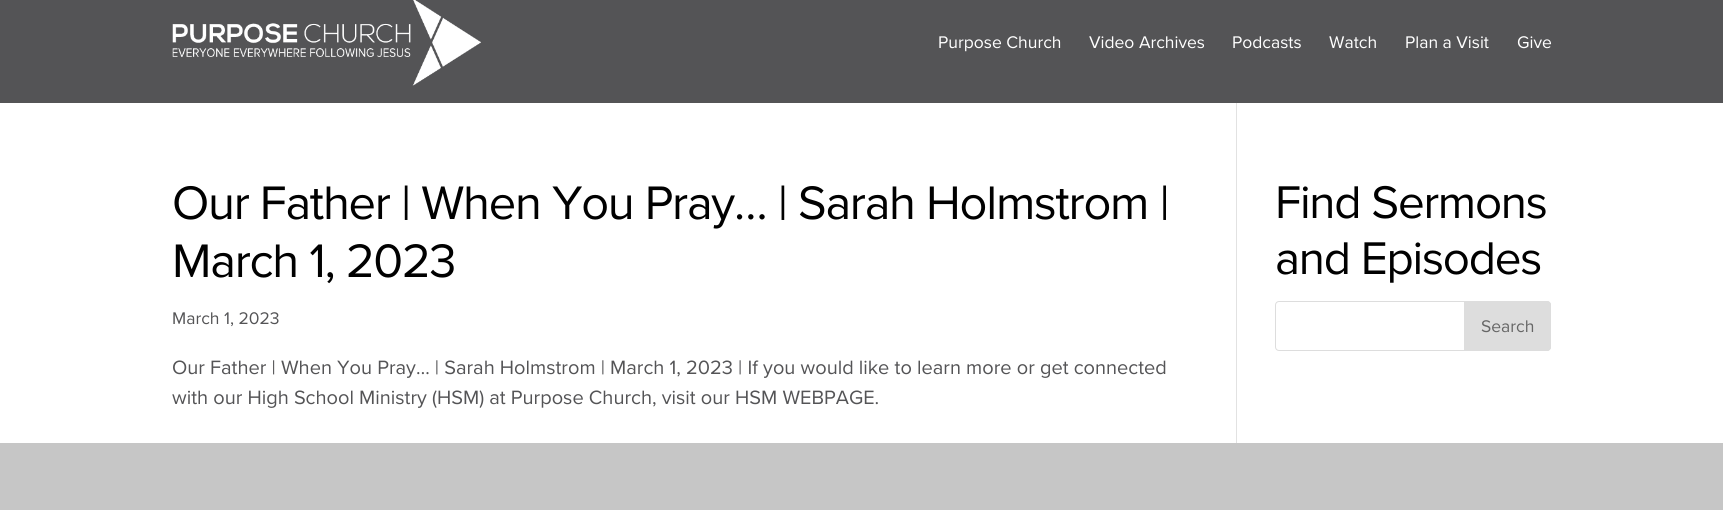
#include <cairo/cairo.h>
#include <math.h>
#include <stddef.h>

static cairo_t *cr;

static void use_color(int r, int g, int b) {
  cairo_set_source_rgb(cr, r / 255.0, g / 255.0, b / 255.0);
}

static void text(double x, double y, const char *s, const char *family, double size, int italic, int bold, int r, int g, int b) {
  cairo_select_font_face(cr, family, italic ? CAIRO_FONT_SLANT_ITALIC : CAIRO_FONT_SLANT_NORMAL,
    bold ? CAIRO_FONT_WEIGHT_BOLD : CAIRO_FONT_WEIGHT_NORMAL);
  cairo_set_font_size(cr, size);
  use_color(r, g, b);
  cairo_move_to(cr, x, y);
  cairo_show_text(cr, s);
}

static void spaced_text(double x, double y, const char *s, double letter, double word) {
  cairo_move_to(cr, x, y);
  while (*s) {
    char ch[5] = {0};
    int n = 0;
    do ch[n++] = *s++; while ((*s & 0xC0) == 0x80);
    cairo_show_text(cr, ch);
    cairo_rel_move_to(cr, letter + word * (*ch == ' '), 0);
  }
}

static void box(double x, double y, double w, double h, int r, int g, int b) {
  use_color(r, g, b);
  cairo_rectangle(cr, x, y, w, h);
  cairo_fill(cr);
}

static void round_rect(double x, double y, double w, double h, double r) {
  cairo_new_sub_path(cr);
  cairo_arc(cr, x + w - r, y + h - r, r, 0, M_PI / 2);
  cairo_arc(cr, x + r, y + h - r, r, M_PI / 2, M_PI);
  cairo_arc(cr, x + r, y + r, r, M_PI, 1.5 * M_PI);
  cairo_arc(cr, x + w - r, y + r, r, 1.5 * M_PI, 2 * M_PI);
  cairo_close_path(cr);
}

static void picture(const char *path, double x, double y, double w, double h) {
  cairo_surface_t *image = cairo_image_surface_create_from_png(path);
  cairo_save(cr);
  cairo_set_source_surface(cr, image, x, y);
  cairo_rectangle(cr, x, y, w, h);
  cairo_fill(cr);
  cairo_restore(cr);
  cairo_surface_destroy(image);
}

static void draw(void) {
  use_color(255, 255, 255);
  cairo_paint(cr);
  box(0, 0, 1723, 103, 84, 84, 86);
  picture("img_01.png", 172, 0, 309, 86);
  box(1236, 103, 1, 340, 226, 226, 226);
  round_rect(1275.5, 301.5, 275, 49, 3.5);
  use_color(221, 221, 221);
  cairo_set_line_width(cr, 1);
  cairo_stroke(cr);
  cairo_new_path(cr);
  cairo_move_to(cr, 1464.5, 301.5);
  cairo_line_to(cr, 1547, 301.5);
  cairo_curve_to(cr, 1549, 301.5, 1550.5, 303, 1550.5, 305);
  cairo_line_to(cr, 1550.5, 347);
  cairo_curve_to(cr, 1550.5, 349, 1549, 350.5, 1547, 350.5);
  cairo_line_to(cr, 1464.5, 350.5);
  cairo_close_path(cr);
  cairo_fill_preserve(cr);
  cairo_stroke(cr);
  box(0, 443, 1723, 67, 198, 198, 198);
  text(938, 48, "Purpose Church", "Proxima Nova", 17.5, 0, 0, 255, 255, 255);
  text(1089, 48, "Video Archives", "Proxima Nova", 17.5, 0, 0, 255, 255, 255);
  text(1232, 48, "Podcasts", "Proxima Nova", 17.5, 0, 0, 255, 255, 255);
  text(1329, 48, "Watch", "Proxima Nova", 17.5, 0, 0, 255, 255, 255);
  text(1405, 48, "Plan a Visit", "Proxima Nova", 17.5, 0, 0, 255, 255, 255);
  text(1517, 48, "Give", "Proxima Nova", 17.5, 0, 0, 255, 255, 255);
  cairo_set_font_size(cr, 48.75);
  use_color(0, 0, 0);
  spaced_text(172, 219, "Our Father | When You Pray… | Sarah Holmstrom |", -1.25, 0);
  spaced_text(172, 277, "March 1, 2023", -1.25, 0);
  text(172, 324, "March 1, 2023", "Proxima Nova", 17.5, 0, 0, 84, 84, 86);
  text(172, 374, "Our Father | When You Pray… | Sarah Holmstrom | March 1, 2023 | If you would like to learn more or get connected", "Proxima Nova", 20, 0, 0, 84, 84, 86);
  text(172, 404, "with our High School Ministry (HSM) at Purpose Church, visit our HSM WEBPAGE.", "Proxima Nova", 20, 0, 0, 84, 84, 86);
  cairo_set_font_size(cr, 47.5);
  use_color(0, 0, 0);
  spaced_text(1275, 218, "Find Sermons", -1.25, 0);
  spaced_text(1275, 274, "and Episodes", -1.25, 0);
  text(1481, 332, "Search", "Proxima Nova", 17.5, 0, 0, 102, 102, 102);
}

int main(void) {
  cairo_surface_t *surface = cairo_image_surface_create(CAIRO_FORMAT_RGB24, 1723, 510);
  cr = cairo_create(surface);
  cairo_font_options_t *options = cairo_font_options_create();
  cairo_font_options_set_hint_metrics(options, CAIRO_HINT_METRICS_OFF);
  cairo_font_options_set_hint_style(options, CAIRO_HINT_STYLE_NONE);
  cairo_set_font_options(cr, options);
  cairo_set_miter_limit(cr, 4);
  draw();
  cairo_surface_write_to_png(surface, "out.png");
  cairo_font_options_destroy(options);
  cairo_destroy(cr);
  cairo_surface_destroy(surface);
  return 0;
}
